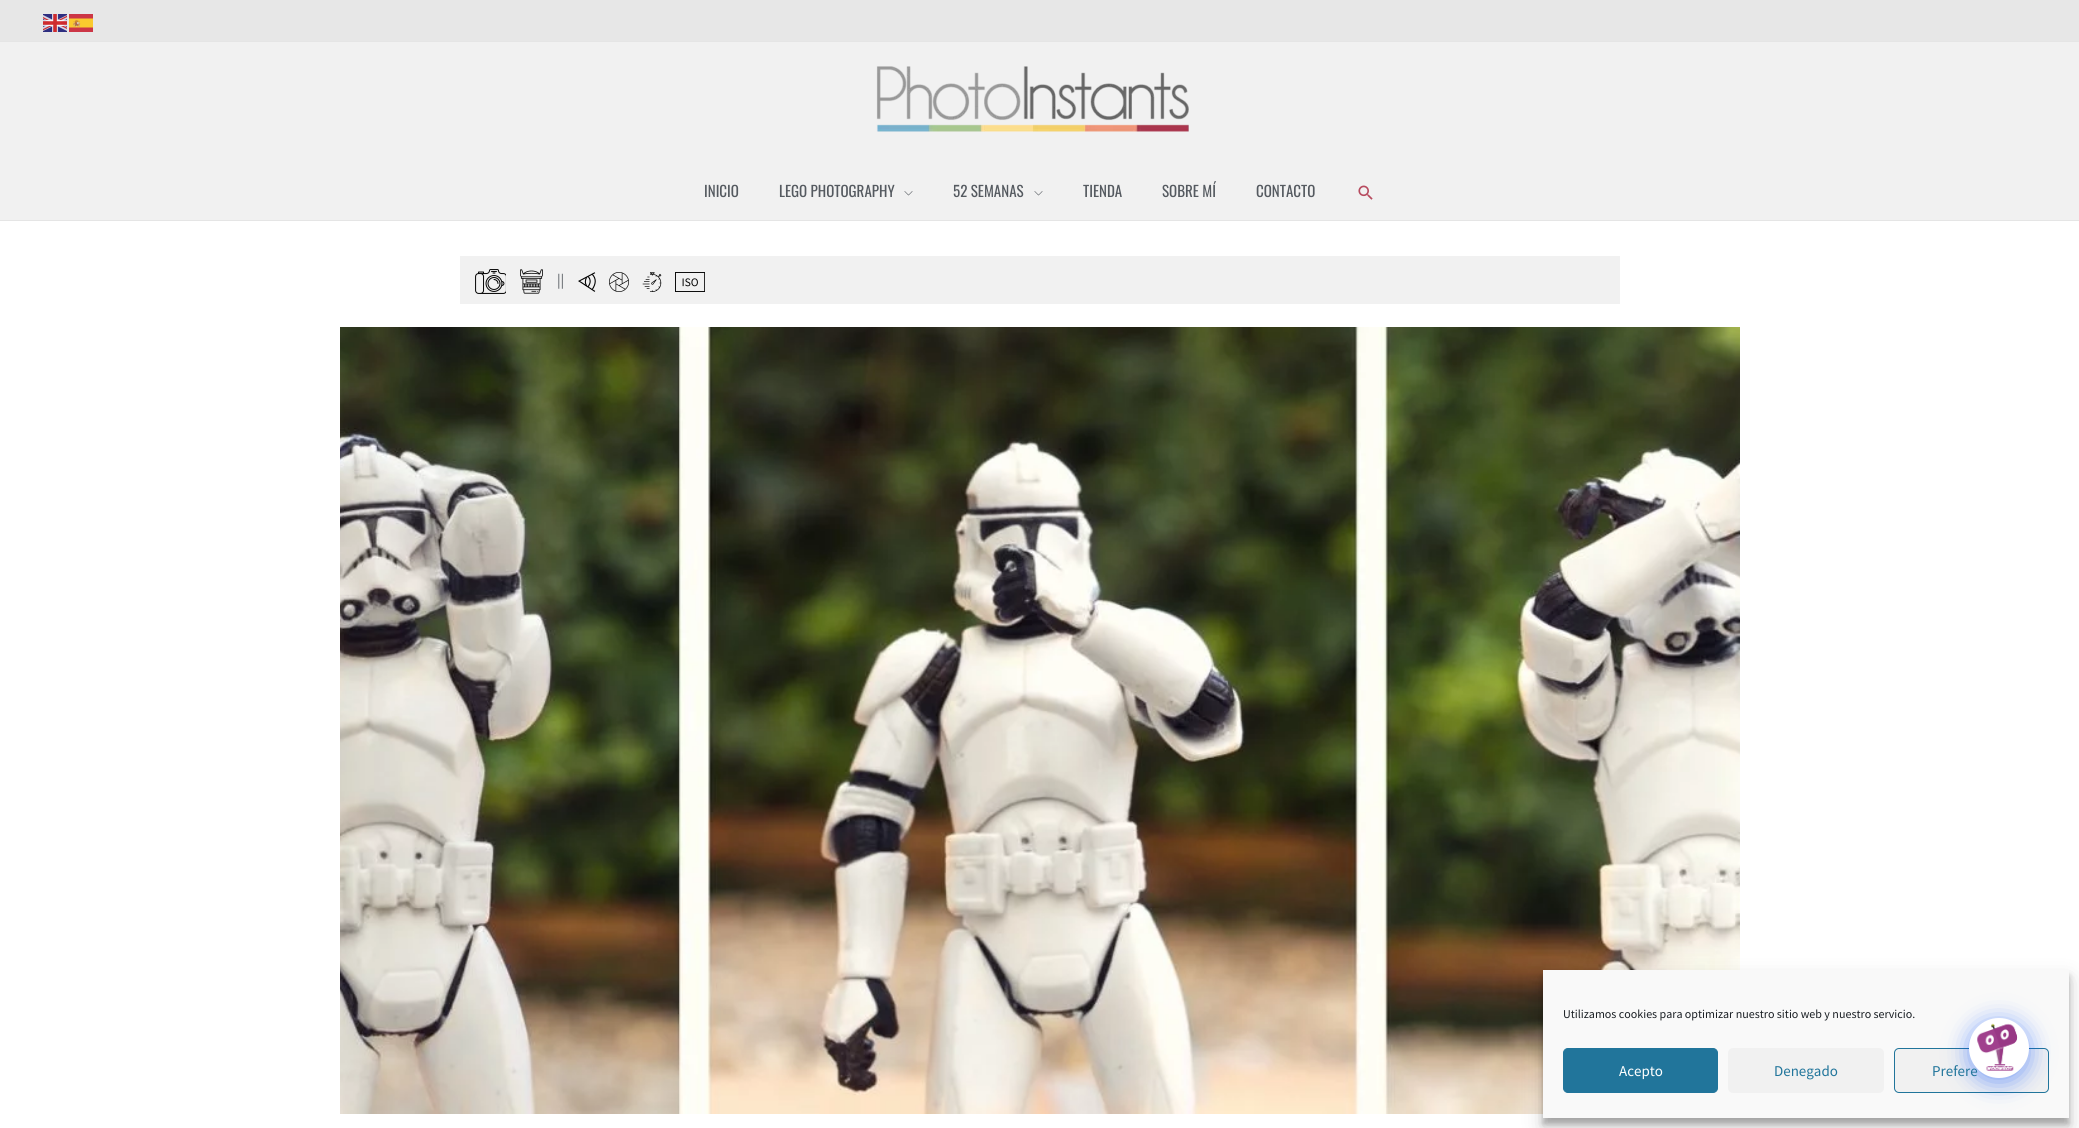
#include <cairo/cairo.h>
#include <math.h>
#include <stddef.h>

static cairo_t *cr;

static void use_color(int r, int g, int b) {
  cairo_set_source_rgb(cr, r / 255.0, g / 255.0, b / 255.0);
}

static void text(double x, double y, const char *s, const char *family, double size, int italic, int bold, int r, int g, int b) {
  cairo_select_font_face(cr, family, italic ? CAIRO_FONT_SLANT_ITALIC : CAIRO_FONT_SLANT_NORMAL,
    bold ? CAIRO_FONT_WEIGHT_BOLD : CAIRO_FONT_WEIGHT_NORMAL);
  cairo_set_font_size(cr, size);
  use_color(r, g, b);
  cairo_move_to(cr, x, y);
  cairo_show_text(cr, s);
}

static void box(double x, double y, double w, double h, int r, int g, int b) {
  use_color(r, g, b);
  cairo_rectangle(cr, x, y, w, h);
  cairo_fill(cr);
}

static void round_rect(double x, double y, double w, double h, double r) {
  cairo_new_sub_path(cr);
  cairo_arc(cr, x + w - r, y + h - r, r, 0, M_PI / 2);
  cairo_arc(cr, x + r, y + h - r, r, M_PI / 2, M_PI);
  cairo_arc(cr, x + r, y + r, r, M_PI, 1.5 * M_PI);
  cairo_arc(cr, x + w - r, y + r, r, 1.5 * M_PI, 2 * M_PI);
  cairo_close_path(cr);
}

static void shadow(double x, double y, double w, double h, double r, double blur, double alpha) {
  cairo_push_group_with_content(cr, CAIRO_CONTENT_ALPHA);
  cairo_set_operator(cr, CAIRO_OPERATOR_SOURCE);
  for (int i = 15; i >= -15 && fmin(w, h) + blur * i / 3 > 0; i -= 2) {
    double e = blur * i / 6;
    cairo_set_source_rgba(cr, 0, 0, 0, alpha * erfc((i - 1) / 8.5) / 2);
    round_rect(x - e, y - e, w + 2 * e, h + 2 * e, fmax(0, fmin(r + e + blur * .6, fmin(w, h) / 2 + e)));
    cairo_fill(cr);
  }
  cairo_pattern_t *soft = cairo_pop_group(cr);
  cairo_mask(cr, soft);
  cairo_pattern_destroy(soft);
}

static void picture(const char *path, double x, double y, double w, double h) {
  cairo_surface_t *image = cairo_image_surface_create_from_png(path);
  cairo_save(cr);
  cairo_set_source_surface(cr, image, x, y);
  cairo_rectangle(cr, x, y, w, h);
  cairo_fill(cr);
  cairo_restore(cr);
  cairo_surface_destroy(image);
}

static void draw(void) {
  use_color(255, 255, 255);
  cairo_paint(cr);
  box(0, 0, 2079, 41, 231, 231, 231);
  box(0, 41, 2079, 1, 229, 229, 229);
  picture("img_01.png", 43, 14, 24, 18);
  picture("img_02.png", 69, 14, 24, 18);
  box(0, 42, 2079, 178, 241, 241, 241);
  box(0, 220, 2079, 1, 229, 229, 229);
  picture("img_03.png", 876, 66, 313, 66);
  picture("img_04.png", 904, 191, 9, 5);
  picture("img_04.png", 1034, 191, 9, 5);
  picture("img_05.png", 1358, 185, 15, 15);
  box(460, 256, 1160, 48, 241, 241, 241);
  picture("img_06.png", 475, 269, 31, 25);
  picture("img_07.png", 520, 269, 23, 25);
  picture("img_08.png", 578, 272, 18, 20);
  picture("img_09.png", 609, 272, 20, 20);
  picture("img_10.png", 642, 272, 20, 20);
  picture("img_11.png", 675, 272, 30, 20);
  picture("img_12.png", 340, 327, 1400, 787);
  use_color(0, 0, 0);
  shadow(1543, 976, 526, 148, 0, 3, 0.23);
  shadow(1543, 980, 526, 148, 0, 10, 0.19);
  box(1543, 970, 526, 148, 249, 249, 249);
  use_color(33, 117, 155);
  round_rect(1563.5, 1048.5, 154, 44, 4.5);
  cairo_fill_preserve(cr);
  cairo_set_line_width(cr, 1);
  cairo_stroke(cr);
  use_color(241, 241, 241);
  round_rect(1728, 1048, 156, 45, 5);
  cairo_fill(cr);
  round_rect(1894.5, 1048.5, 154, 44, 4.5);
  cairo_fill_preserve(cr);
  use_color(33, 117, 155);
  cairo_stroke(cr);
  use_color(0, 77, 255);
  shadow(1969, 1022, 60, 60, 30, 12, 0.5);
  text(704, 197, "INICIO", "Oswald", 15, 0, 0, 85, 90, 96);
  text(779, 197, "LEGO PHOTOGRAPHY", "Oswald", 15, 0, 0, 85, 90, 96);
  text(953, 197, "52 SEMANAS", "Oswald", 15, 0, 0, 85, 90, 96);
  text(1083, 197, "TIENDA", "Oswald", 15, 0, 0, 85, 90, 96);
  text(1162, 197, "SOBRE MÍ", "Oswald", 15, 0, 0, 85, 90, 96);
  text(1256, 197, "CONTACTO", "Oswald", 15, 0, 0, 85, 90, 96);
  text(557, 285, "||", "Source Sans Pro", 15, 0, 0, 85, 90, 96);
  text(1563, 1018, "Utilizamos cookies para optimizar nuestro sitio web y nuestro servicio.", "Source Sans Pro", 12, 0, 0, 25, 30, 35);
  text(1619, 1076, "Acepto", "Source Sans Pro", 15, 0, 0, 255, 255, 255);
  text(1774, 1076, "Denegado", "Source Sans Pro", 15, 0, 0, 33, 117, 155);
  text(1932, 1076, "Prefere", "Source Sans Pro", 15, 0, 0, 33, 117, 155);
  use_color(255, 255, 255);
  cairo_new_path(cr);
  cairo_arc(cr, 1999, 1048, 30, 0, 2 * M_PI);
  cairo_fill(cr);
  picture("img_13.png", 1977, 1023, 41, 48);
}

int main(void) {
  cairo_surface_t *surface = cairo_image_surface_create(CAIRO_FORMAT_RGB24, 2079, 1128);
  cr = cairo_create(surface);
  cairo_font_options_t *options = cairo_font_options_create();
  cairo_font_options_set_hint_metrics(options, CAIRO_HINT_METRICS_OFF);
  cairo_font_options_set_hint_style(options, CAIRO_HINT_STYLE_NONE);
  cairo_set_font_options(cr, options);
  cairo_set_miter_limit(cr, 4);
  draw();
  cairo_surface_write_to_png(surface, "out.png");
  cairo_font_options_destroy(options);
  cairo_destroy(cr);
  cairo_surface_destroy(surface);
  return 0;
}
